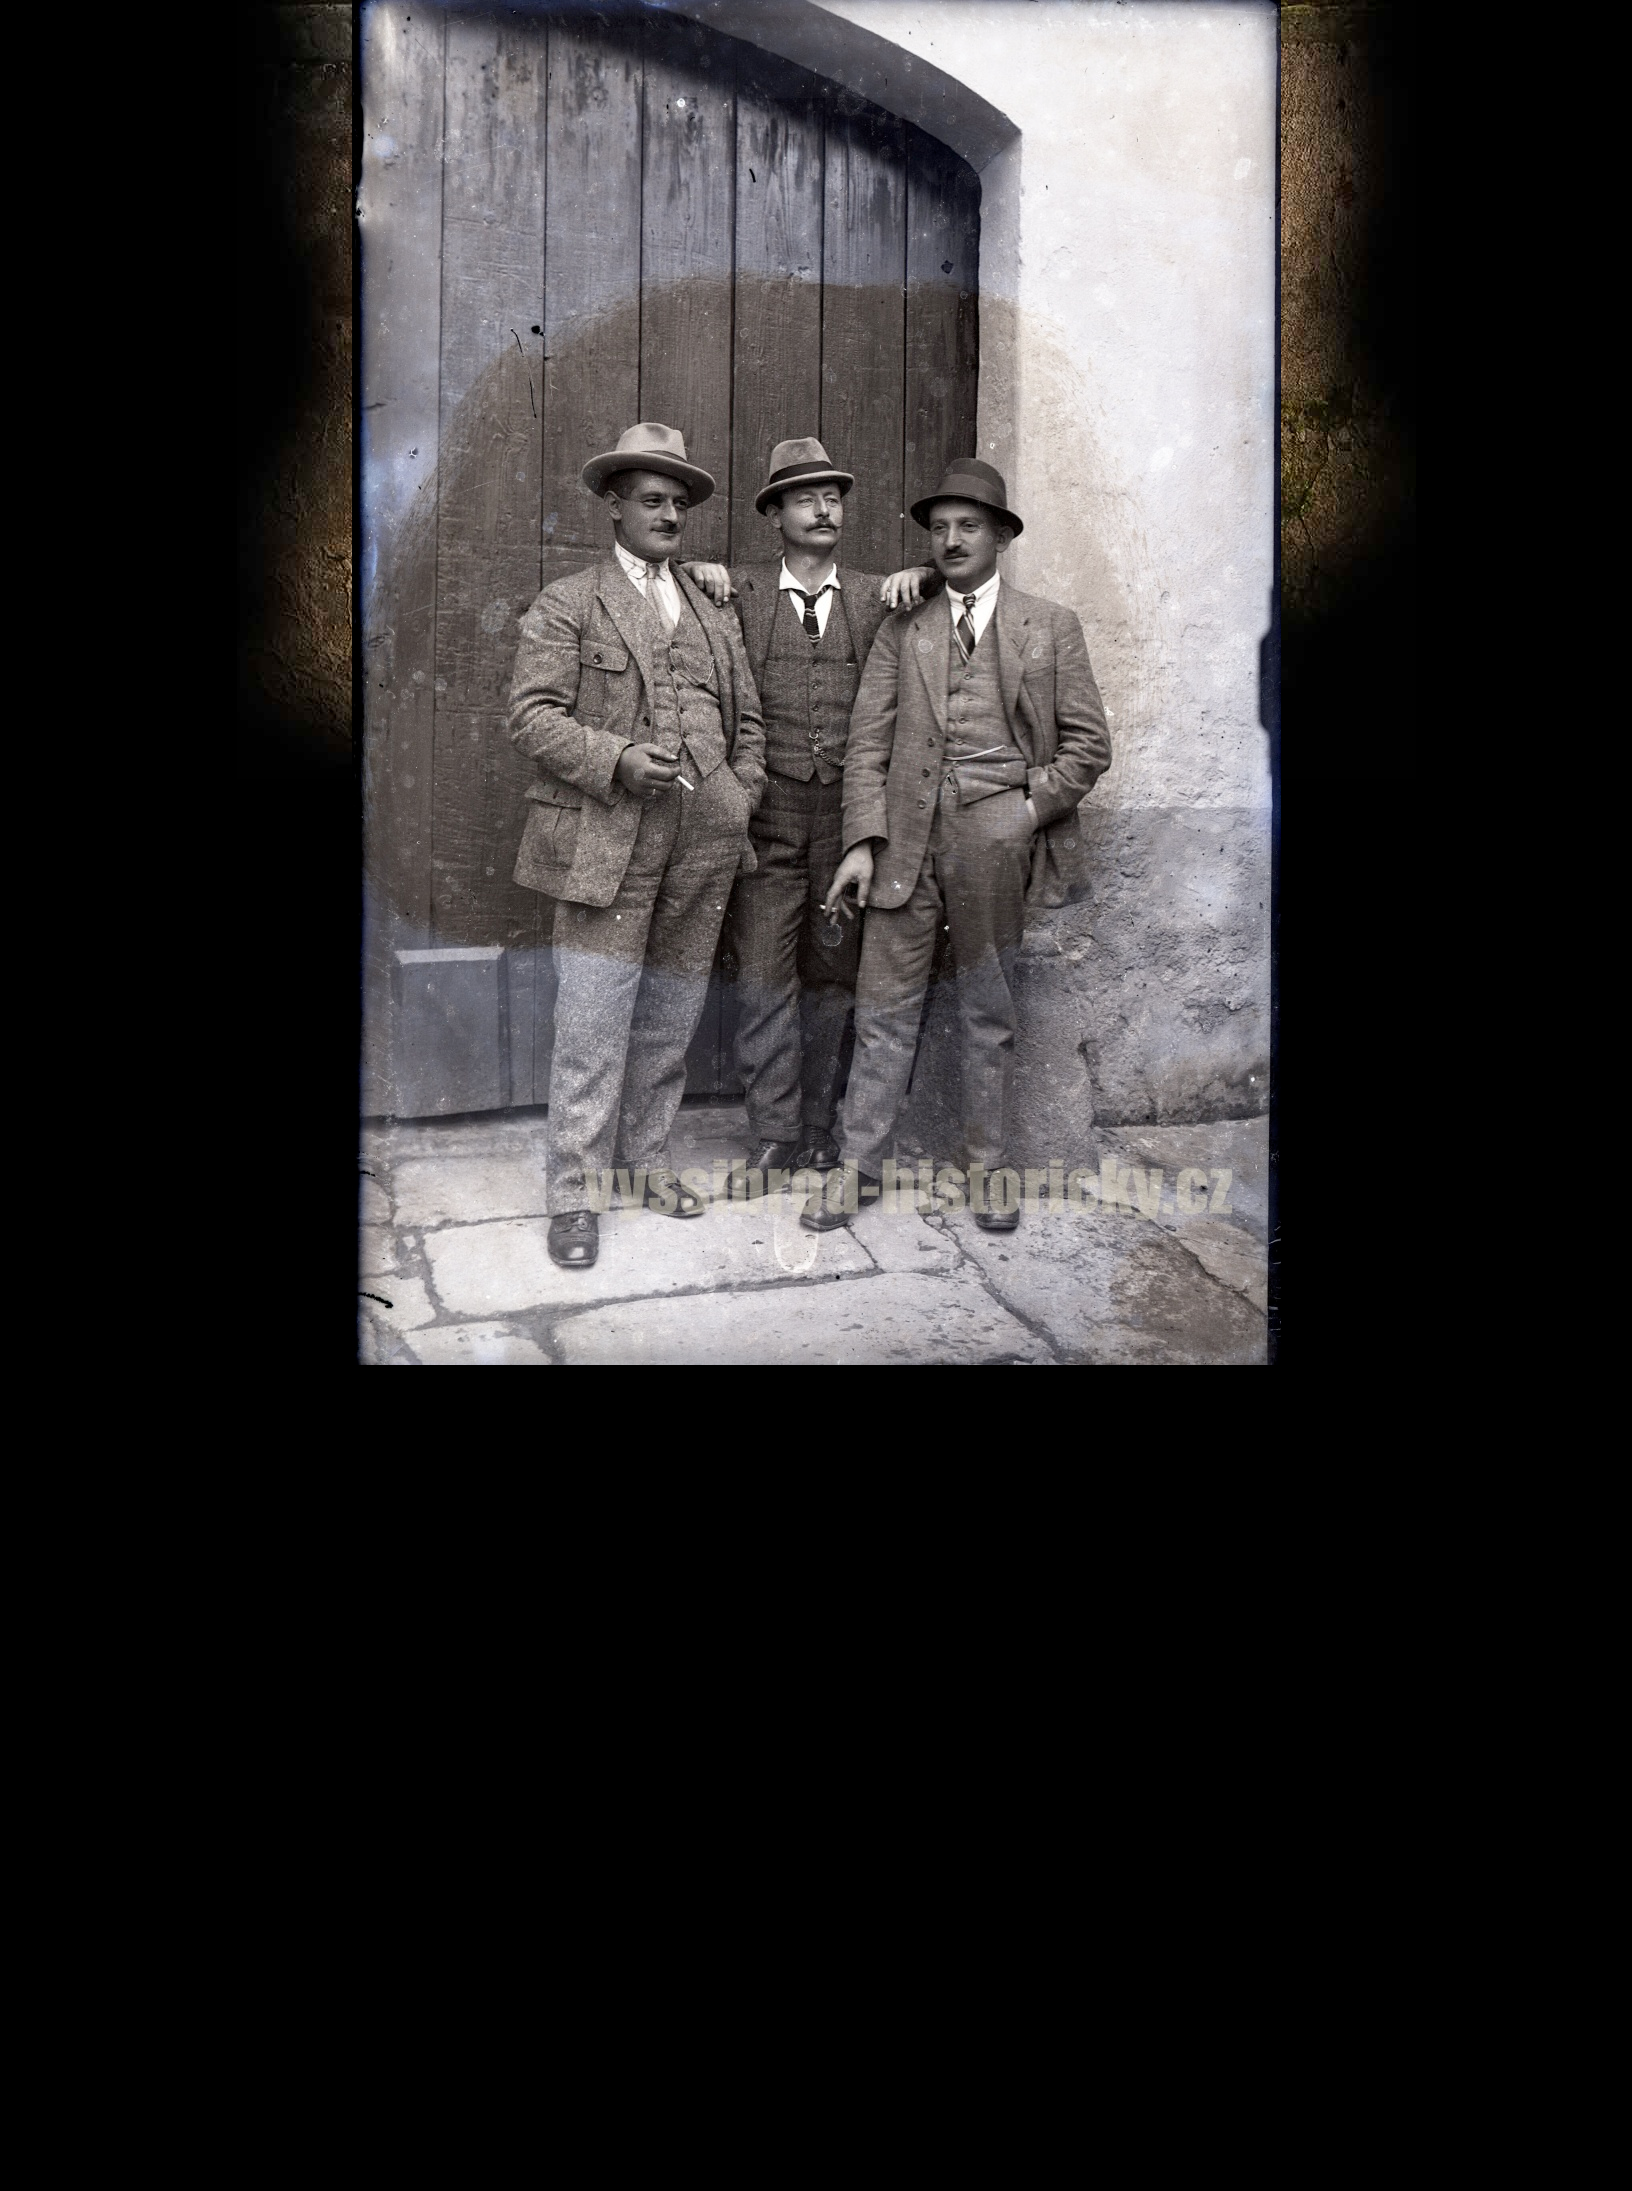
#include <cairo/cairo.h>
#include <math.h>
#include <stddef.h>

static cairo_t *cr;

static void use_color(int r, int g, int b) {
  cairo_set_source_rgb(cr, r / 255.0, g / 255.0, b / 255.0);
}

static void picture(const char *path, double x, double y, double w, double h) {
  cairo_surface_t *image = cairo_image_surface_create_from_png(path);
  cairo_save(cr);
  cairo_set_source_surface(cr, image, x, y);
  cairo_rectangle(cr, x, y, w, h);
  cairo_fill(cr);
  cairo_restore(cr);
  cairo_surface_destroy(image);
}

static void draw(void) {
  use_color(0, 0, 0);
  cairo_paint(cr);
  picture("img_01.png", 237, 0, 1179, 779);
  picture("img_02.png", 352, 0, 929, 1365);
}

int main(void) {
  cairo_surface_t *surface = cairo_image_surface_create(CAIRO_FORMAT_RGB24, 1632, 2191);
  cr = cairo_create(surface);
  cairo_font_options_t *options = cairo_font_options_create();
  cairo_font_options_set_hint_metrics(options, CAIRO_HINT_METRICS_OFF);
  cairo_font_options_set_hint_style(options, CAIRO_HINT_STYLE_NONE);
  cairo_set_font_options(cr, options);
  cairo_set_miter_limit(cr, 4);
  draw();
  cairo_surface_write_to_png(surface, "out.png");
  cairo_font_options_destroy(options);
  cairo_destroy(cr);
  cairo_surface_destroy(surface);
  return 0;
}
